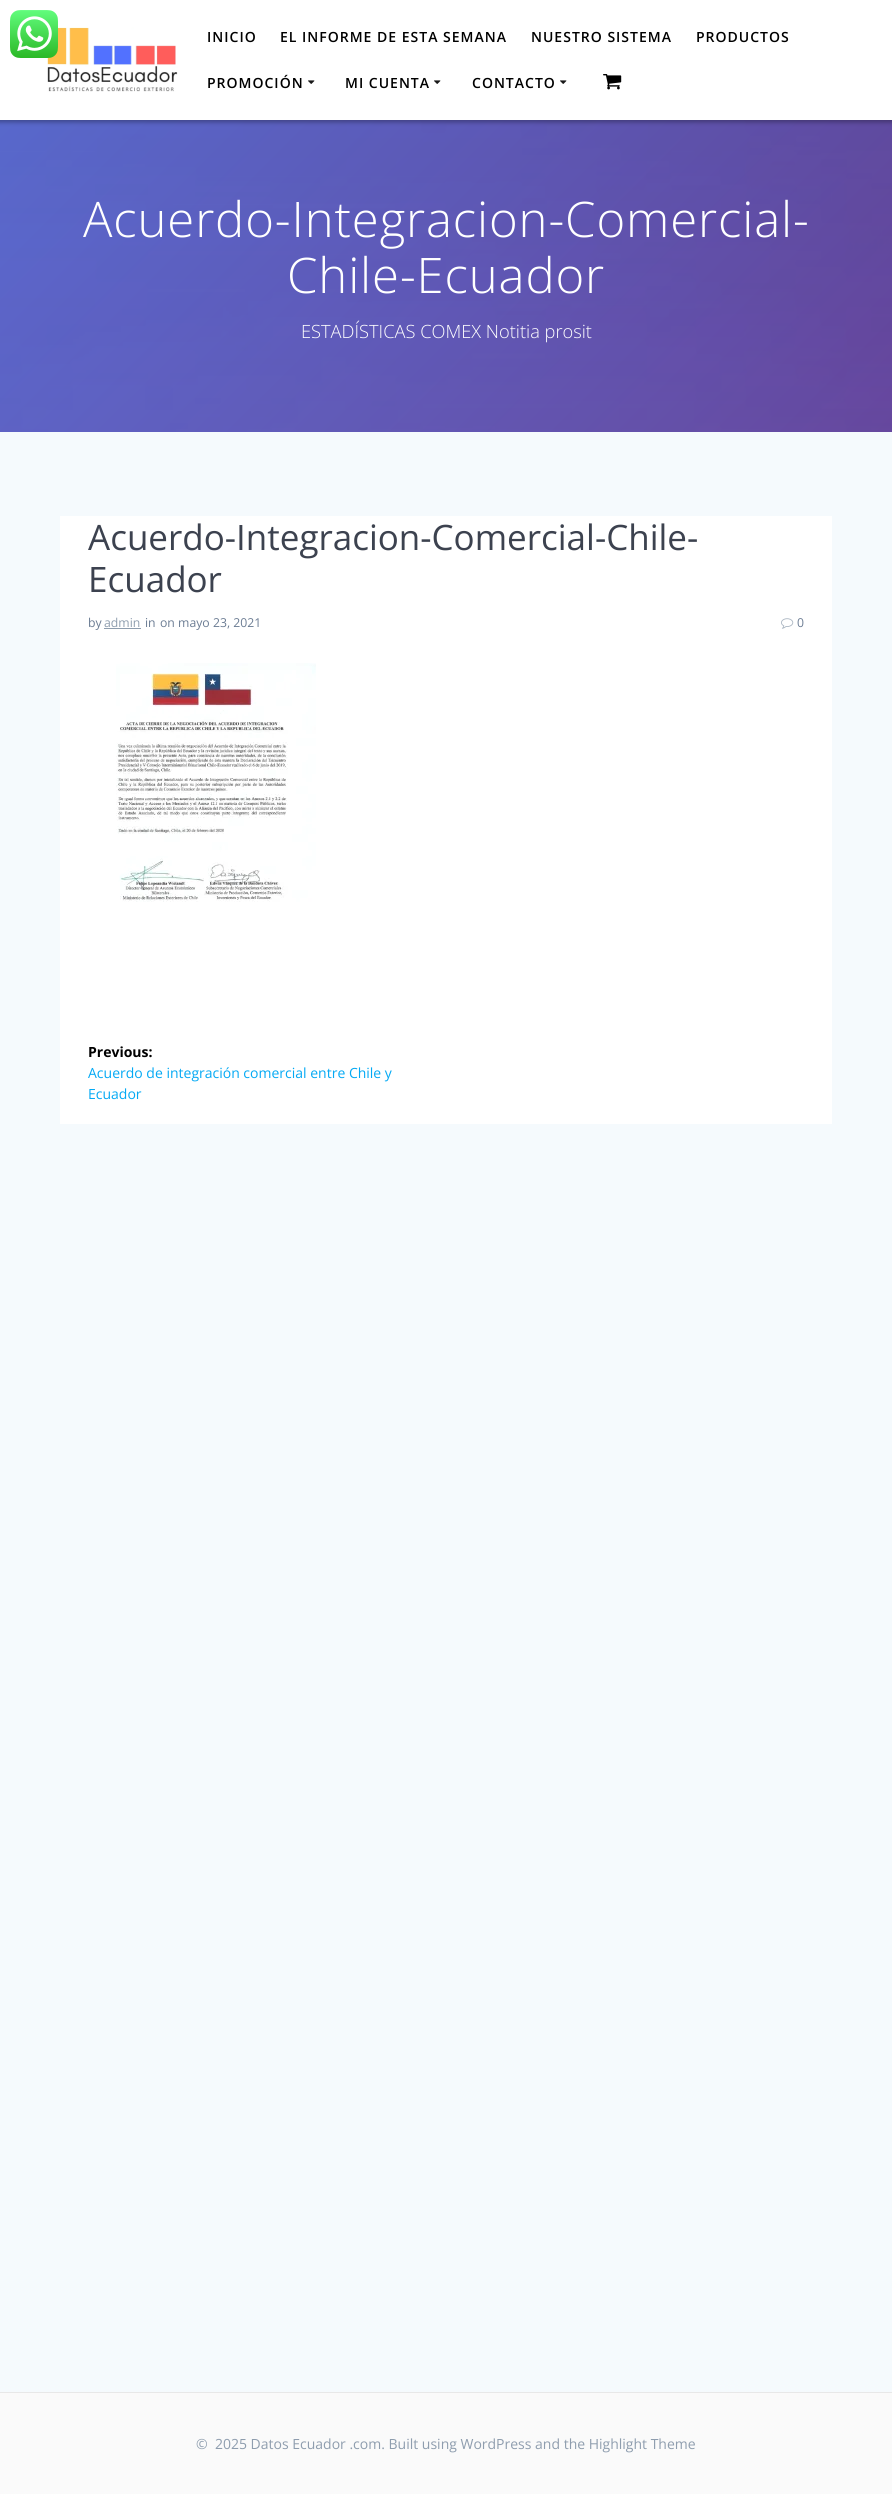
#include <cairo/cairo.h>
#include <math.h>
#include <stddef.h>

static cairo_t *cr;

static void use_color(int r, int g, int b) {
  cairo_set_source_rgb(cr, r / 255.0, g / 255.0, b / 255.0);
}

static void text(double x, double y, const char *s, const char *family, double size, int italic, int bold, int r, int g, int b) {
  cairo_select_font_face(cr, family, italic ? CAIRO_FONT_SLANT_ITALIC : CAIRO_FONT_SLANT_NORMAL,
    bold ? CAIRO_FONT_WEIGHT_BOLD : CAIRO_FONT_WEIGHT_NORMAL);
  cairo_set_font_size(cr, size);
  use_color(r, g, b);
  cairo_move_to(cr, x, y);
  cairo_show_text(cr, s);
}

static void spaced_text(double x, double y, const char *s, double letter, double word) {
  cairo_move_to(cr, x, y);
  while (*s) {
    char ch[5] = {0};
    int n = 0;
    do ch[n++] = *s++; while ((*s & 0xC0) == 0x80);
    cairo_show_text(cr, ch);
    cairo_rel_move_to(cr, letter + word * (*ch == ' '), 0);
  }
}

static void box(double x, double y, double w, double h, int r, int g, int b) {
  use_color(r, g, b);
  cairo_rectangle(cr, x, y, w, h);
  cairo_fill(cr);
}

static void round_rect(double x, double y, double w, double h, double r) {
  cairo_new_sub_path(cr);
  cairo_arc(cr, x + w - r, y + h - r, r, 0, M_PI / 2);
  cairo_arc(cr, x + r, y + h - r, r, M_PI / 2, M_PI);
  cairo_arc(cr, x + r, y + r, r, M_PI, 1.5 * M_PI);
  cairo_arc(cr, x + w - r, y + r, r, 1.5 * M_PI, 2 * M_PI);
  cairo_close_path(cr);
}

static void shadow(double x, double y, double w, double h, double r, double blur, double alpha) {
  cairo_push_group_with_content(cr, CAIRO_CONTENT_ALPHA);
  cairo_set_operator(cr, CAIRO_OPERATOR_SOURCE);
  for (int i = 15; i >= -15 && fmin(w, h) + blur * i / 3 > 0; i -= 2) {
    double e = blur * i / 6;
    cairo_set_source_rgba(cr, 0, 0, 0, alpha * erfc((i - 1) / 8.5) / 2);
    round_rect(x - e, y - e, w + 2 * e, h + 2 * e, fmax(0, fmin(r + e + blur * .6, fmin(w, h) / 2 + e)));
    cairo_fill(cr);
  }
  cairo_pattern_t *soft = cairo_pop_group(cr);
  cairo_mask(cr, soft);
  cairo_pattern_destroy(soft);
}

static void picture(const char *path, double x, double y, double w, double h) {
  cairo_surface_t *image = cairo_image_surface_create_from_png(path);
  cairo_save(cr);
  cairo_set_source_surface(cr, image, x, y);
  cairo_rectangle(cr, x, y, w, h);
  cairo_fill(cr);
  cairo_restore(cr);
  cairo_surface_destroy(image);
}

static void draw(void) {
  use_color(250, 250, 250);
  cairo_paint(cr);
  picture("img_05.png", 0, 120, 892, 312);
  use_color(0, 0, 0);
  shadow(-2, -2, 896, 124, 0, 2.5, 0.33);
  box(0, 0, 892, 120, 255, 255, 255);
  picture("img_02.png", 47, 27, 131, 65);
  picture("img_01.png", 10, 10, 48, 48);
  picture("img_03.png", 308, 80, 7, 4);
  picture("img_03.png", 434, 80, 7, 4);
  picture("img_03.png", 560, 80, 7, 4);
  picture("img_04.png", 603, 74, 19, 16);
  box(0, 432, 892, 1960, 245, 250, 253);
  box(60, 516, 772, 608, 255, 255, 255);
  box(104, 628, 37, 1, 142, 157, 174);
  picture("img_06.png", 781, 618, 13, 11);
  picture("img_07.png", 116, 663, 200, 239);
  box(0, 2392, 892, 1, 232, 232, 232);
  cairo_select_font_face(cr, "Open Sans SemiBold", CAIRO_FONT_SLANT_NORMAL, CAIRO_FONT_WEIGHT_NORMAL);
  cairo_set_font_size(cr, 14);
  use_color(0, 0, 0);
  spaced_text(207, 42, "INICIO", 1, 0);
  spaced_text(280, 42, "EL INFORME DE ESTA SEMANA", 1, 0);
  spaced_text(531, 42, "NUESTRO SISTEMA", 1, 0);
  spaced_text(696, 42, "PRODUCTOS", 1, 0);
  spaced_text(207, 88, "PROMOCIÓN", 1, 0);
  spaced_text(345, 88, "MI CUENTA", 1, 0);
  spaced_text(472, 88, "CONTACTO", 1, 0);
  cairo_select_font_face(cr, "Open Sans Light", CAIRO_FONT_SLANT_NORMAL, CAIRO_FONT_WEIGHT_NORMAL);
  cairo_set_font_size(cr, 49);
  use_color(255, 255, 255);
  spaced_text(83, 237, "Acuerdo-Integracion-Comercial-", 0.9, 0);
  spaced_text(287, 293, "Chile-Ecuador", 0.9, 0);
  text(301, 338, "ESTADÍSTICAS COMEX Notitia prosit", "Open Sans Light", 18.25, 0, 0, 255, 255, 255);
  text(88, 550, "Acuerdo-Integracion-Comercial-Chile-", "Open Sans", 35, 0, 0, 60, 66, 79);
  text(88, 592, "Ecuador", "Open Sans", 35, 0, 0, 60, 66, 79);
  text(88, 627, "by", "Open Sans", 12.25, 0, 0, 107, 124, 147);
  text(104, 627, "admin", "Open Sans", 12.25, 0, 0, 142, 157, 174);
  text(145, 627, "in", "Open Sans", 12.25, 0, 0, 107, 124, 147);
  text(160, 627, "on mayo 23, 2021", "Open Sans", 12.25, 0, 0, 107, 124, 147);
  text(797, 627, "0", "Open Sans", 12.25, 0, 0, 107, 124, 147);
  text(88, 1057, "Previous:", "Open Sans", 14, 0, 1, 0, 0, 0);
  text(88, 1078, "Acuerdo de integración comercial entre Chile y", "Open Sans", 14, 0, 0, 3, 169, 244);
  text(88, 1099, "Ecuador", "Open Sans", 14, 0, 0, 3, 169, 244);
  text(196, 2449, "©  2025 Datos Ecuador .com. Built using WordPress and the Highlight Theme", "Open Sans", 14, 0, 0, 142, 157, 174);
}

int main(void) {
  cairo_surface_t *surface = cairo_image_surface_create(CAIRO_FORMAT_RGB24, 892, 2494);
  cr = cairo_create(surface);
  cairo_font_options_t *options = cairo_font_options_create();
  cairo_font_options_set_hint_metrics(options, CAIRO_HINT_METRICS_OFF);
  cairo_font_options_set_hint_style(options, CAIRO_HINT_STYLE_NONE);
  cairo_set_font_options(cr, options);
  cairo_set_miter_limit(cr, 4);
  draw();
  cairo_surface_write_to_png(surface, "out.png");
  cairo_font_options_destroy(options);
  cairo_destroy(cr);
  cairo_surface_destroy(surface);
  return 0;
}
